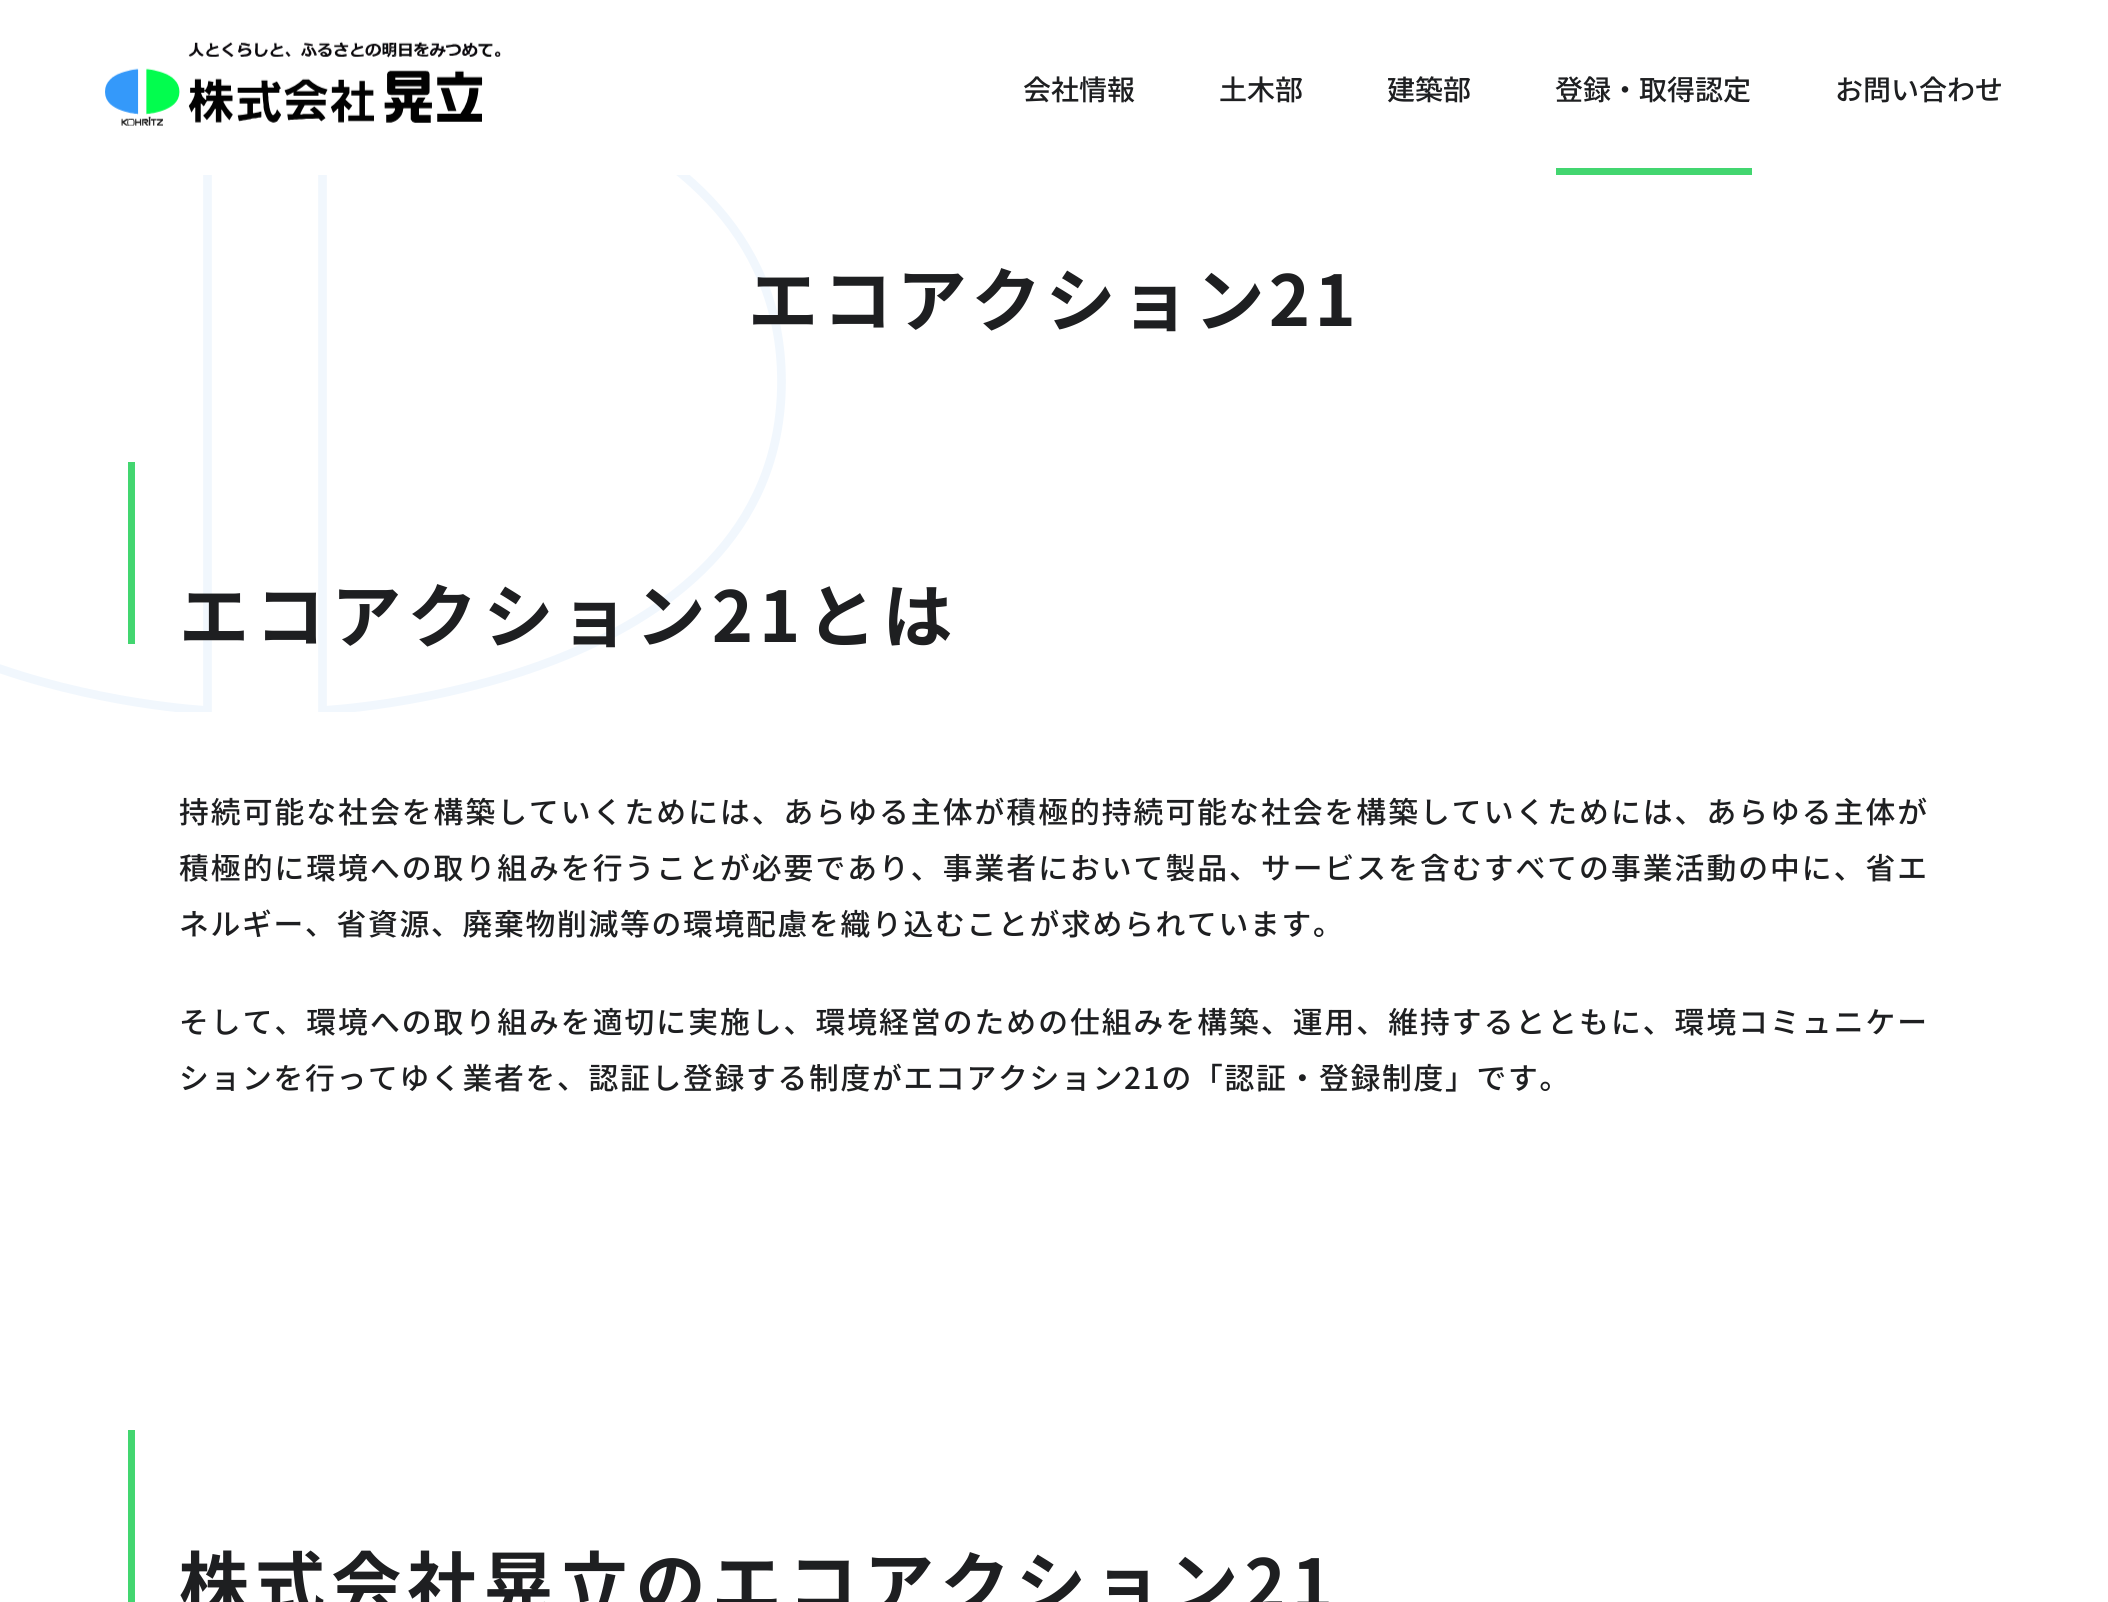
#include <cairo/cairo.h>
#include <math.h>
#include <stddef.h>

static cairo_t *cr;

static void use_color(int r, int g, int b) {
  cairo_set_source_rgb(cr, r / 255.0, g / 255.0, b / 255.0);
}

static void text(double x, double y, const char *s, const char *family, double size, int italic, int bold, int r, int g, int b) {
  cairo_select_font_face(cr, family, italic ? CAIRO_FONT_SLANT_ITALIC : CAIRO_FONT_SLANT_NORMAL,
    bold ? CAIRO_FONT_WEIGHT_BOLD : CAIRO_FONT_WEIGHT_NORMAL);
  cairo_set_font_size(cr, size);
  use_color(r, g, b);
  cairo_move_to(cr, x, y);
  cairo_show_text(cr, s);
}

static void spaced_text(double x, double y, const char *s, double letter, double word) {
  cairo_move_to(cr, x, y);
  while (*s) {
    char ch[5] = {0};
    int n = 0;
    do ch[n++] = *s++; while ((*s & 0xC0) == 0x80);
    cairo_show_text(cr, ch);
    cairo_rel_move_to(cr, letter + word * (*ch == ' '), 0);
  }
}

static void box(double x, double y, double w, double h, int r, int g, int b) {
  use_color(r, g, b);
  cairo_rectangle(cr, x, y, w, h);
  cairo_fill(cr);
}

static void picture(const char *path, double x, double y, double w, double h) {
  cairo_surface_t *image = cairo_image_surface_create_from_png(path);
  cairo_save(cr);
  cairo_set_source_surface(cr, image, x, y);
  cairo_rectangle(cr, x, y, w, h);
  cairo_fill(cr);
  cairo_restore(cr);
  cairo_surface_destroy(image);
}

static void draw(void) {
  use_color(255, 255, 255);
  cairo_paint(cr);
  cairo_save(cr);
  cairo_rectangle(cr, 0, 46, 786, 666);
  cairo_clip(cr);
  cairo_new_path(cr);
  cairo_move_to(cr, 322.5, 48.5);
  cairo_line_to(cr, 322.5, 710.5);
  cairo_curve_to(cr, 322.5, 710.5, 781.5, 688, 781.5, 381.5);
  cairo_curve_to(cr, 781.5, 75, 322.5, 48.5, 322.5, 48.5);
  cairo_close_path(cr);
  use_color(241, 247, 253);
  cairo_set_line_width(cr, 8.7);
  cairo_stroke(cr);
  cairo_new_path(cr);
  cairo_move_to(cr, 207.5, 48.5);
  cairo_line_to(cr, 207.5, 710.5);
  cairo_curve_to(cr, 207.5, 710.5, -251, 688, -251, 381.5);
  cairo_curve_to(cr, -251, 75, 207.5, 48.5, 207.5, 48.5);
  cairo_close_path(cr);
  cairo_stroke(cr);
  cairo_restore(cr);
  box(0, 46, 690, 129, 255, 255, 255);
  picture("img_01.png", 105, 41, 396, 85);
  box(1556, 168, 196, 7, 67, 214, 112);
  box(128, 462, 7, 182, 67, 214, 112);
  box(128, 1430, 7, 172, 67, 214, 112);
  text(1023, 100, "会社情報", "Noto Sans JP Medium", 28, 0, 0, 30, 31, 33);
  text(1219, 100, "土木部", "Noto Sans JP Medium", 28, 0, 0, 30, 31, 33);
  text(1387, 100, "建築部", "Noto Sans JP Medium", 28, 0, 0, 30, 31, 33);
  text(1555, 100, "登録・取得認定", "Noto Sans JP Medium", 28, 0, 0, 30, 31, 33);
  text(1835, 100, "お問い合わせ", "Noto Sans JP Medium", 28, 0, 0, 30, 31, 33);
  cairo_select_font_face(cr, "Noto Sans JP", CAIRO_FONT_SLANT_NORMAL, CAIRO_FONT_WEIGHT_BOLD);
  cairo_set_font_size(cr, 70);
  spaced_text(748, 326, "エコアクション21", 4.4, 0);
  spaced_text(179, 642, "エコアクション21とは", 6.1, 0);
  cairo_select_font_face(cr, "Noto Sans JP Medium", CAIRO_FONT_SLANT_NORMAL, CAIRO_FONT_WEIGHT_NORMAL);
  cairo_set_font_size(cr, 29.75);
  spaced_text(179, 823, "持続可能な社会を構築していくためには、あらゆる主体が積極的持続可能な社会を構築していくためには、あらゆる主体が", 2.07, 0);
  spaced_text(179, 879, "積極的に環境への取り組みを行うことが必要であり、事業者において製品、サービスを含むすべての事業活動の中に、省エ", 2.07, 0);
  spaced_text(179, 935, "ネルギー、省資源、廃棄物削減等の環境配慮を織り込むことが求められています。", 1.75, 0);
  spaced_text(179, 1033, "そして、環境への取り組みを適切に実施し、環境経営のための仕組みを構築、運用、維持するとともに、環境コミュニケー", 2.07, 0);
  spaced_text(179, 1089, "ションを行ってゆく業者を、認証し登録する制度がエコアクション21の「認証・登録制度」です。", 1.75, 0);
  cairo_select_font_face(cr, "Noto Sans JP", CAIRO_FONT_SLANT_NORMAL, CAIRO_FONT_WEIGHT_BOLD);
  cairo_set_font_size(cr, 70);
  spaced_text(179, 1610, "株式会社晃立のエコアクション21", 6.1, 0);
}

int main(void) {
  cairo_surface_t *surface = cairo_image_surface_create(CAIRO_FORMAT_RGB24, 2108, 1602);
  cr = cairo_create(surface);
  cairo_font_options_t *options = cairo_font_options_create();
  cairo_font_options_set_hint_metrics(options, CAIRO_HINT_METRICS_OFF);
  cairo_font_options_set_hint_style(options, CAIRO_HINT_STYLE_NONE);
  cairo_set_font_options(cr, options);
  cairo_set_miter_limit(cr, 4);
  draw();
  cairo_surface_write_to_png(surface, "out.png");
  cairo_font_options_destroy(options);
  cairo_destroy(cr);
  cairo_surface_destroy(surface);
  return 0;
}
